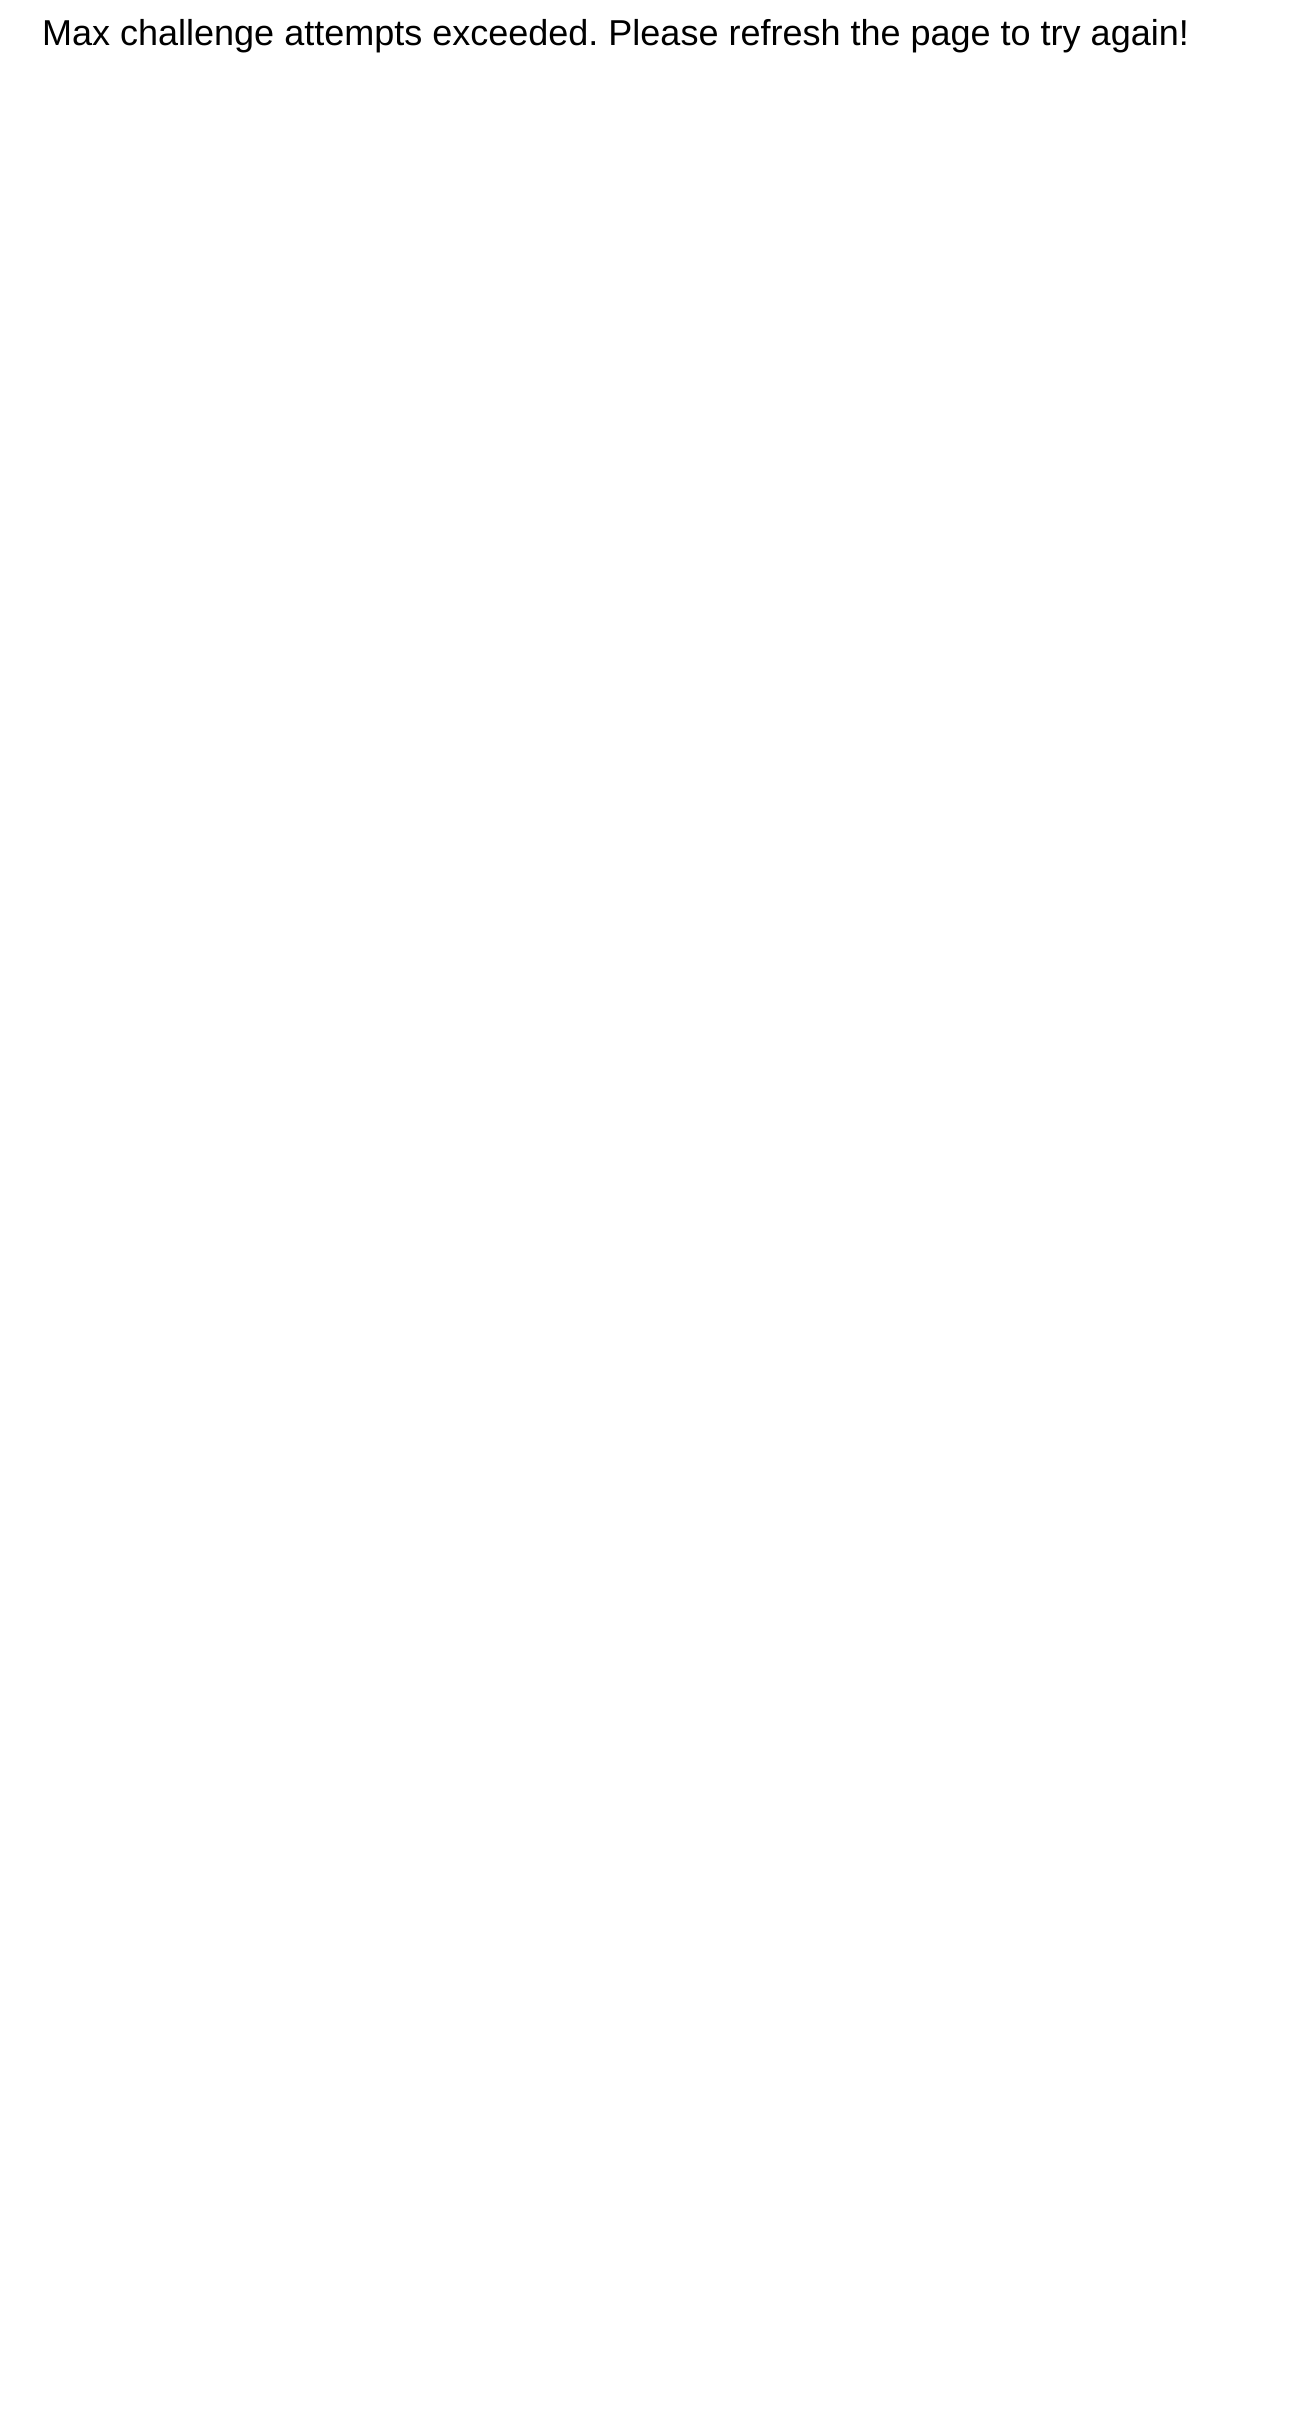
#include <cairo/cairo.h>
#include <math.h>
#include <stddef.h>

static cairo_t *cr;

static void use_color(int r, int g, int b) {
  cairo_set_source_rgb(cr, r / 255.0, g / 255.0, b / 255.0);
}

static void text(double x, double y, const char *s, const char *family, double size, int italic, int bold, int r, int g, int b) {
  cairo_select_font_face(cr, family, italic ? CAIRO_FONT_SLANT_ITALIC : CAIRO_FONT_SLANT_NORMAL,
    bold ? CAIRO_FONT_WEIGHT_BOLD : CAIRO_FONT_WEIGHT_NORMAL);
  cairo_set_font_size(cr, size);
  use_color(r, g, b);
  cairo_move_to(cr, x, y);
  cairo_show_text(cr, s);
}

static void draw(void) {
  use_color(255, 255, 255);
  cairo_paint(cr);
  text(42, 45, "Max challenge attempts exceeded. Please refresh the page to try again!", "Liberation Sans", 36, 0, 0, 0, 0, 0);
}

int main(void) {
  cairo_surface_t *surface = cairo_image_surface_create(CAIRO_FORMAT_RGB24, 1301, 2414);
  cr = cairo_create(surface);
  cairo_font_options_t *options = cairo_font_options_create();
  cairo_font_options_set_hint_metrics(options, CAIRO_HINT_METRICS_OFF);
  cairo_font_options_set_hint_style(options, CAIRO_HINT_STYLE_NONE);
  cairo_set_font_options(cr, options);
  cairo_set_miter_limit(cr, 4);
  draw();
  cairo_surface_write_to_png(surface, "out.png");
  cairo_font_options_destroy(options);
  cairo_destroy(cr);
  cairo_surface_destroy(surface);
  return 0;
}
